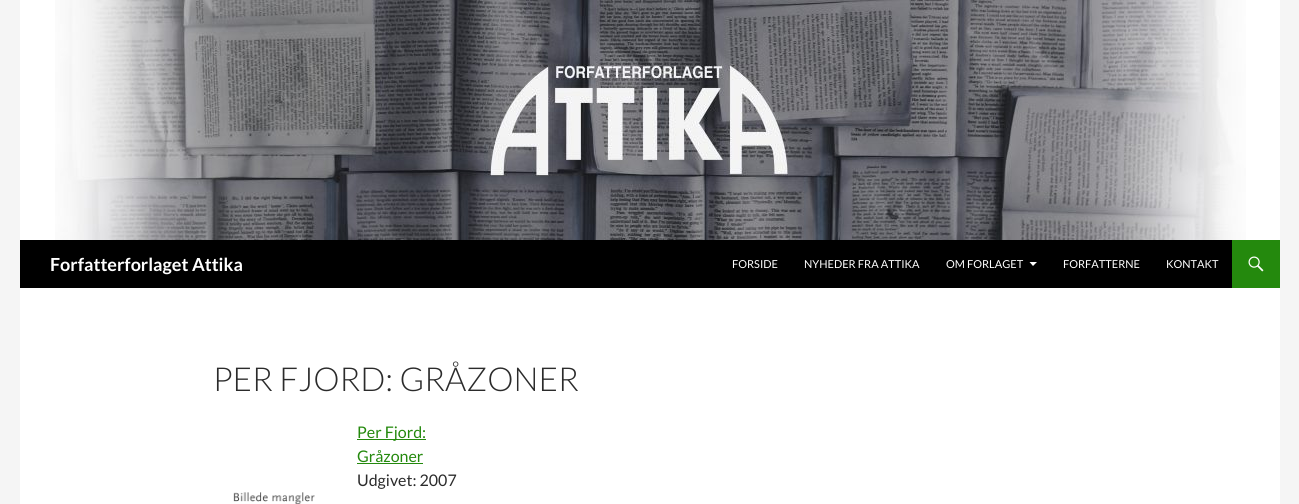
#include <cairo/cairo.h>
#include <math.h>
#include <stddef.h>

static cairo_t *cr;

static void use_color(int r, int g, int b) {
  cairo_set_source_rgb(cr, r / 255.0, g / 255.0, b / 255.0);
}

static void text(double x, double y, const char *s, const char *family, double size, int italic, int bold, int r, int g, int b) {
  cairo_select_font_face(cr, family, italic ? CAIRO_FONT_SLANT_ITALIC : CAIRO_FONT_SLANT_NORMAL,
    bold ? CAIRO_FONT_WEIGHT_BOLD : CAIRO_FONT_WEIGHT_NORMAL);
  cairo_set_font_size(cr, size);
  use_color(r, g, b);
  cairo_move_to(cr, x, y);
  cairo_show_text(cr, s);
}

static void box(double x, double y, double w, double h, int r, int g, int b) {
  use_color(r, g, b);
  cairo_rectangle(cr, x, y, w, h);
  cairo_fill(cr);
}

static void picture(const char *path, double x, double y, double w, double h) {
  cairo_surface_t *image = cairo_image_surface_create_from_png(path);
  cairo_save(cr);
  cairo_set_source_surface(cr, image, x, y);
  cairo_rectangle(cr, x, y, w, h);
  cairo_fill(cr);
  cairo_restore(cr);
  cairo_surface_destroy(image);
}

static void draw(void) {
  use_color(245, 245, 245);
  cairo_paint(cr);
  box(20, 0, 1260, 504, 255, 255, 255);
  picture("img_01.png", 55, 0, 1191, 240);
  box(20, 240, 1212, 48, 0, 0, 0);
  use_color(255, 255, 255);
  cairo_new_path(cr);
  cairo_move_to(cr, 1029.5, 262);
  cairo_line_to(cr, 1033, 266);
  cairo_line_to(cr, 1037, 262);
  cairo_close_path(cr);
  cairo_fill(cr);
  box(1232, 240, 48, 48, 36, 137, 13);
  picture("img_02.png", 1248, 256, 16, 16);
  box(357, 439, 69, 1, 36, 137, 13);
  box(357, 463, 66, 1, 36, 137, 13);
  picture("img_03.png", 233, 492, 82, 12);
  text(50, 271, "Forfatterforlaget Attika", "Lato", 18, 0, 1, 255, 255, 255);
  text(732, 268, "FORSIDE", "Lato", 11, 0, 0, 255, 255, 255);
  text(804, 268, "NYHEDER FRA ATTIKA", "Lato", 11, 0, 0, 255, 255, 255);
  text(946, 268, "OM FORLAGET", "Lato", 11, 0, 0, 255, 255, 255);
  text(1063, 268, "FORFATTERNE", "Lato", 11, 0, 0, 255, 255, 255);
  text(1166, 268, "KONTAKT", "Lato", 11, 0, 0, 255, 255, 255);
  text(213, 391, "PER FJORD: GRÅZONER", "Lato Light", 33, 0, 0, 43, 43, 43);
  text(357, 438, "Per Fjord:", "Lato", 16, 0, 0, 36, 137, 13);
  text(357, 462, "Gråzoner", "Lato", 16, 0, 0, 36, 137, 13);
  text(357, 486, "Udgivet: 2007", "Lato", 16, 0, 0, 43, 43, 43);
}

int main(void) {
  cairo_surface_t *surface = cairo_image_surface_create(CAIRO_FORMAT_RGB24, 1299, 504);
  cr = cairo_create(surface);
  cairo_font_options_t *options = cairo_font_options_create();
  cairo_font_options_set_hint_metrics(options, CAIRO_HINT_METRICS_OFF);
  cairo_font_options_set_hint_style(options, CAIRO_HINT_STYLE_NONE);
  cairo_set_font_options(cr, options);
  cairo_set_miter_limit(cr, 4);
  draw();
  cairo_surface_write_to_png(surface, "out.png");
  cairo_font_options_destroy(options);
  cairo_destroy(cr);
  cairo_surface_destroy(surface);
  return 0;
}
